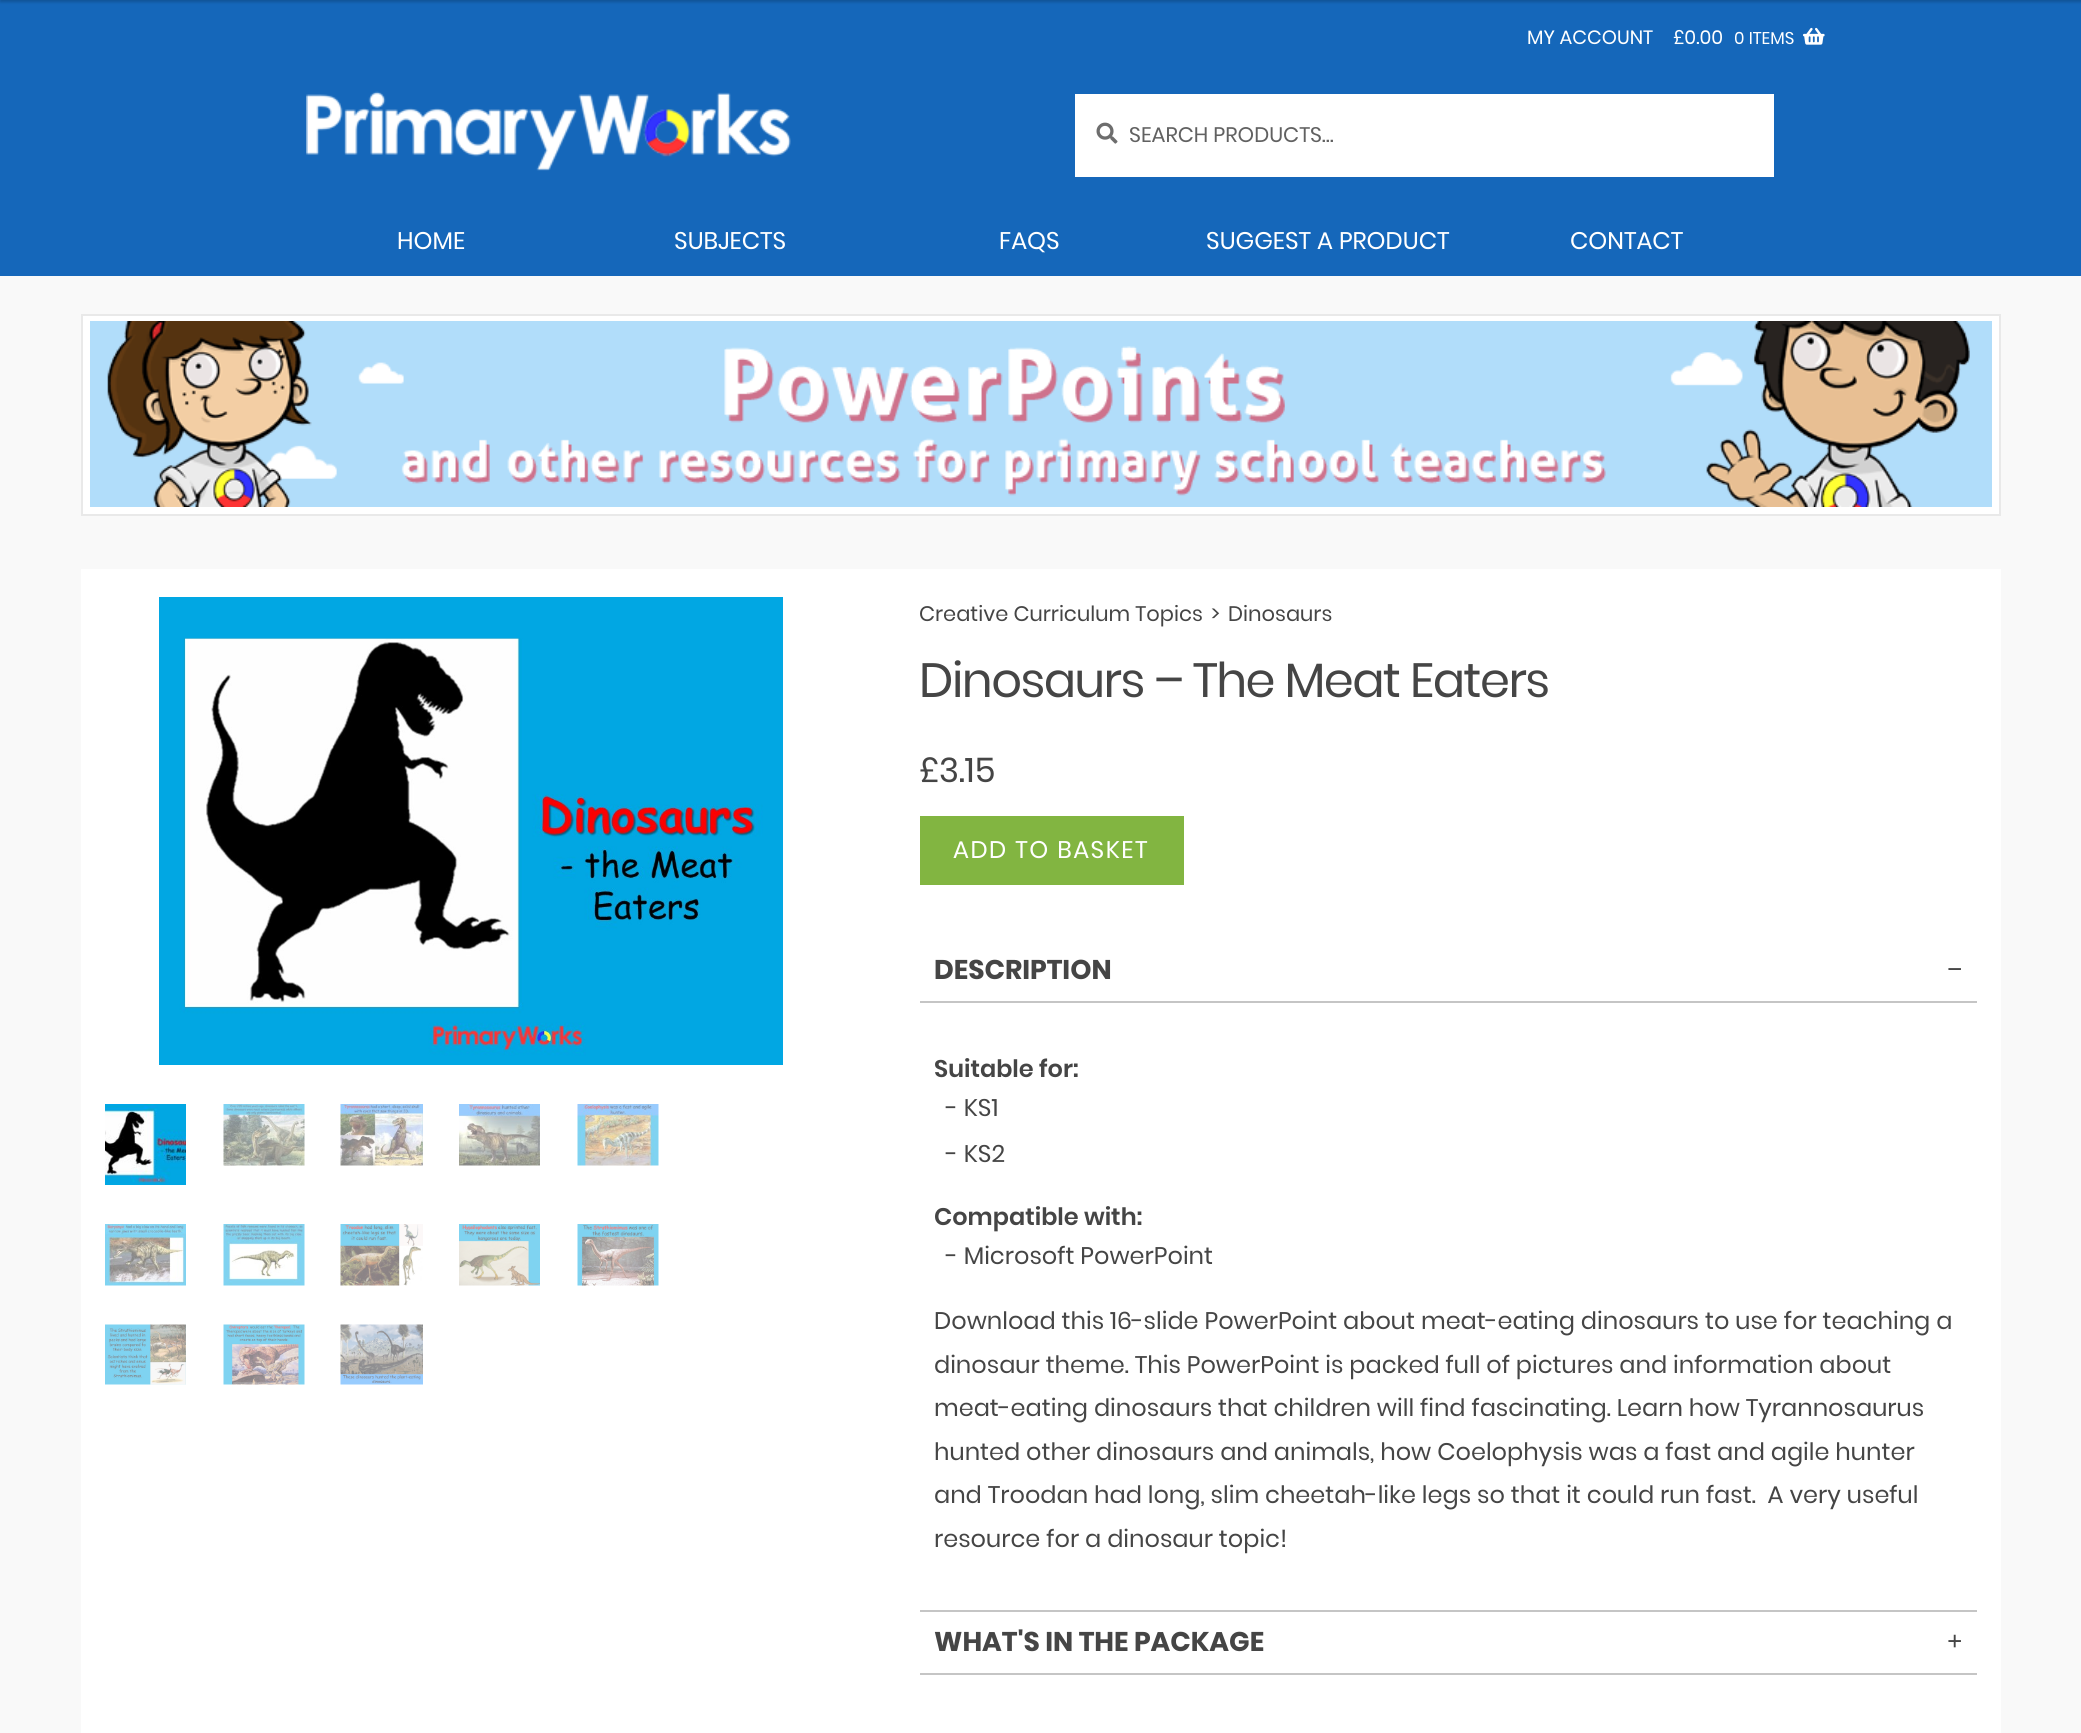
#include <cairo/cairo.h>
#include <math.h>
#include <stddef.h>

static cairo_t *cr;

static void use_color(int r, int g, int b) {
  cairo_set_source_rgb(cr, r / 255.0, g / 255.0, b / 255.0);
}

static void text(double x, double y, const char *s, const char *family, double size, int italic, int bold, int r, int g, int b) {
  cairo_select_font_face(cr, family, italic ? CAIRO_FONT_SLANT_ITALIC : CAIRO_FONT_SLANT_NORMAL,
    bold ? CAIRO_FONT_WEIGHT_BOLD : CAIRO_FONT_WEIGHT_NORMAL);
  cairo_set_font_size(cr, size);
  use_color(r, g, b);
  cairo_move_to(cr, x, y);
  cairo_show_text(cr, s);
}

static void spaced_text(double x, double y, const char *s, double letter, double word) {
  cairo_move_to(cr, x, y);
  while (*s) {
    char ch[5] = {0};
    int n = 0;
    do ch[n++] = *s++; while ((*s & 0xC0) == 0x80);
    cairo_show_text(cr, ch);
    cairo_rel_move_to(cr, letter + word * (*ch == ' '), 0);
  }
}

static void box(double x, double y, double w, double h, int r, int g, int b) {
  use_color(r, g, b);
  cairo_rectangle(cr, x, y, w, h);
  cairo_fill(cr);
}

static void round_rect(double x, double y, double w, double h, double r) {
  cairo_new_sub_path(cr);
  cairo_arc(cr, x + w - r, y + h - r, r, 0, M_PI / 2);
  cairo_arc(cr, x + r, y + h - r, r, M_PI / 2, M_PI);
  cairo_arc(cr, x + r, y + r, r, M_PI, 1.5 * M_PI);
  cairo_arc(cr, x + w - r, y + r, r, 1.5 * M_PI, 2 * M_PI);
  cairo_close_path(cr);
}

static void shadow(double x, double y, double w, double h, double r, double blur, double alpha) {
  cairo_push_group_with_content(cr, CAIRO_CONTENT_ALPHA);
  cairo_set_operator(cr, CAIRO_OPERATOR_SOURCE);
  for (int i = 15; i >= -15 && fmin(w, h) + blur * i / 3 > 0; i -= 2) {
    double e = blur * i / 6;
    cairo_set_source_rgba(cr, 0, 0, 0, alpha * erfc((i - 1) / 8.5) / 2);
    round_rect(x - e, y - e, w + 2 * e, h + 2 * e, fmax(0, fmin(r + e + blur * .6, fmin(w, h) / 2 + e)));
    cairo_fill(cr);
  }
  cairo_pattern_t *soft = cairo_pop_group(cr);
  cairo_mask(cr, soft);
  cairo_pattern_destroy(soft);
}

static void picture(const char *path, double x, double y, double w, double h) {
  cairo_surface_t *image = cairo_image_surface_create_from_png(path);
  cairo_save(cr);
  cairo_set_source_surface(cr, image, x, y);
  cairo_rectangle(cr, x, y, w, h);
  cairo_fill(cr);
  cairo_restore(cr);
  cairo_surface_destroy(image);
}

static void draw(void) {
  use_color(249, 249, 249);
  cairo_paint(cr);
  box(0, 0, 2081, 276, 21, 103, 186);
  use_color(0, 0, 0);
  shadow(0, -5, 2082, 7, 0, 1.5, 0.2);
  picture("img_01.png", 1803, 27, 22, 18);
  picture("img_02.png", 306, 91, 485, 80);
  box(1075, 94, 699, 83, 255, 255, 255);
  picture("img_03.png", 1096, 122, 22, 22);
  cairo_rectangle(cr, 82, 315, 1918, 200);
  cairo_fill_preserve(cr);
  use_color(233, 233, 233);
  cairo_stroke(cr);
  picture("img_04.png", 90, 321, 1902, 186);
  box(81, 569, 1920, 1164, 255, 255, 255);
  picture("img_05.png", 159, 597, 624, 468);
  picture("img_06.png", 105, 1104, 81, 81);
  picture("img_07.png", 223, 1104, 82, 62);
  picture("img_08.png", 340, 1104, 83, 62);
  picture("img_09.png", 459, 1104, 81, 62);
  picture("img_10.png", 577, 1104, 82, 62);
  picture("img_11.png", 105, 1224, 81, 62);
  picture("img_12.png", 223, 1224, 82, 62);
  picture("img_13.png", 340, 1224, 83, 62);
  picture("img_14.png", 459, 1224, 81, 62);
  picture("img_15.png", 577, 1224, 82, 62);
  picture("img_16.png", 105, 1324, 81, 61);
  picture("img_17.png", 223, 1324, 82, 61);
  picture("img_18.png", 340, 1324, 83, 61);
  box(920, 816, 264, 69, 130, 181, 65);
  box(920, 1001, 1057, 2, 197, 197, 197);
  box(920, 1610, 1057, 2, 197, 197, 197);
  box(920, 1673, 1057, 2, 197, 197, 197);
  text(1527, 44, "MY ACCOUNT", "Poppins", 19.25, 0, 0, 255, 255, 255);
  text(1673, 44, "£0.00", "Poppins", 19.25, 0, 0, 255, 255, 255);
  text(1734, 44, "0 ITEMS", "Poppins", 17, 0, 0, 255, 255, 255);
  text(1129, 142, "SEARCH PRODUCTS…", "Poppins", 21, 0, 0, 97, 97, 97);
  text(397, 249, "HOME", "Poppins", 24, 0, 0, 255, 255, 255);
  text(674, 249, "SUBJECTS", "Poppins", 24, 0, 0, 255, 255, 255);
  text(999, 249, "FAQS", "Poppins", 24, 0, 0, 255, 255, 255);
  text(1206, 249, "SUGGEST A PRODUCT", "Poppins", 24, 0, 0, 255, 255, 255);
  text(1570, 249, "CONTACT", "Poppins", 24, 0, 0, 255, 255, 255);
  text(919, 621, "Creative Curriculum Topics", "Poppins", 21, 0, 0, 69, 69, 69);
  text(1211, 621, ">", "Poppins", 21, 0, 0, 69, 69, 69);
  text(1228, 621, "Dinosaurs", "Poppins", 21, 0, 0, 69, 69, 69);
  cairo_set_font_size(cr, 48);
  spaced_text(919, 697, "Dinosaurs – The Meat Eaters", -1.5, 0);
  text(919, 782, "£3.15", "Poppins", 34, 0, 0, 69, 69, 69);
  cairo_set_font_size(cr, 24);
  use_color(255, 255, 255);
  spaced_text(953, 858, "ADD TO BASKET", 1.5, 0);
  text(934, 979, "DESCRIPTION", "Poppins", 27, 0, 1, 69, 69, 69);
  text(1947, 978, "−", "Liberation Serif", 27, 0, 1, 69, 69, 69);
  text(934, 1077, "Suitable for:", "Poppins SemiBold", 24, 0, 0, 69, 69, 69);
  text(946, 1116, "- KS1", "Poppins", 24, 0, 0, 69, 69, 69);
  text(946, 1162, "- KS2", "Poppins", 24, 0, 0, 69, 69, 69);
  text(934, 1225, "Compatible with:", "Poppins SemiBold", 24, 0, 0, 69, 69, 69);
  text(946, 1264, "- Microsoft PowerPoint", "Poppins", 24, 0, 0, 69, 69, 69);
  text(934, 1329, "Download this 16-slide PowerPoint about meat-eating dinosaurs to use for teaching a", "Poppins", 24, 0, 0, 69, 69, 69);
  text(934, 1373, "dinosaur theme. This PowerPoint is packed full of pictures and information about", "Poppins", 24, 0, 0, 69, 69, 69);
  text(934, 1416, "meat-eating dinosaurs that children will find fascinating. Learn how Tyrannosaurus", "Poppins", 24, 0, 0, 69, 69, 69);
  text(934, 1460, "hunted other dinosaurs and animals, how Coelophysis was a fast and agile hunter", "Poppins", 24, 0, 0, 69, 69, 69);
  text(934, 1503, "and Troodan had long, slim cheetah-like legs so that it could run fast.  A very useful", "Poppins", 24, 0, 0, 69, 69, 69);
  text(934, 1547, "resource for a dinosaur topic!", "Poppins", 24, 0, 0, 69, 69, 69);
  text(934, 1651, "WHAT'S IN THE PACKAGE", "Poppins", 27, 0, 1, 69, 69, 69);
  text(1947, 1650, "+", "Liberation Serif", 27, 0, 1, 69, 69, 69);
}

int main(void) {
  cairo_surface_t *surface = cairo_image_surface_create(CAIRO_FORMAT_RGB24, 2081, 1733);
  cr = cairo_create(surface);
  cairo_font_options_t *options = cairo_font_options_create();
  cairo_font_options_set_hint_metrics(options, CAIRO_HINT_METRICS_OFF);
  cairo_font_options_set_hint_style(options, CAIRO_HINT_STYLE_NONE);
  cairo_set_font_options(cr, options);
  cairo_set_miter_limit(cr, 4);
  draw();
  cairo_surface_write_to_png(surface, "out.png");
  cairo_font_options_destroy(options);
  cairo_destroy(cr);
  cairo_surface_destroy(surface);
  return 0;
}
